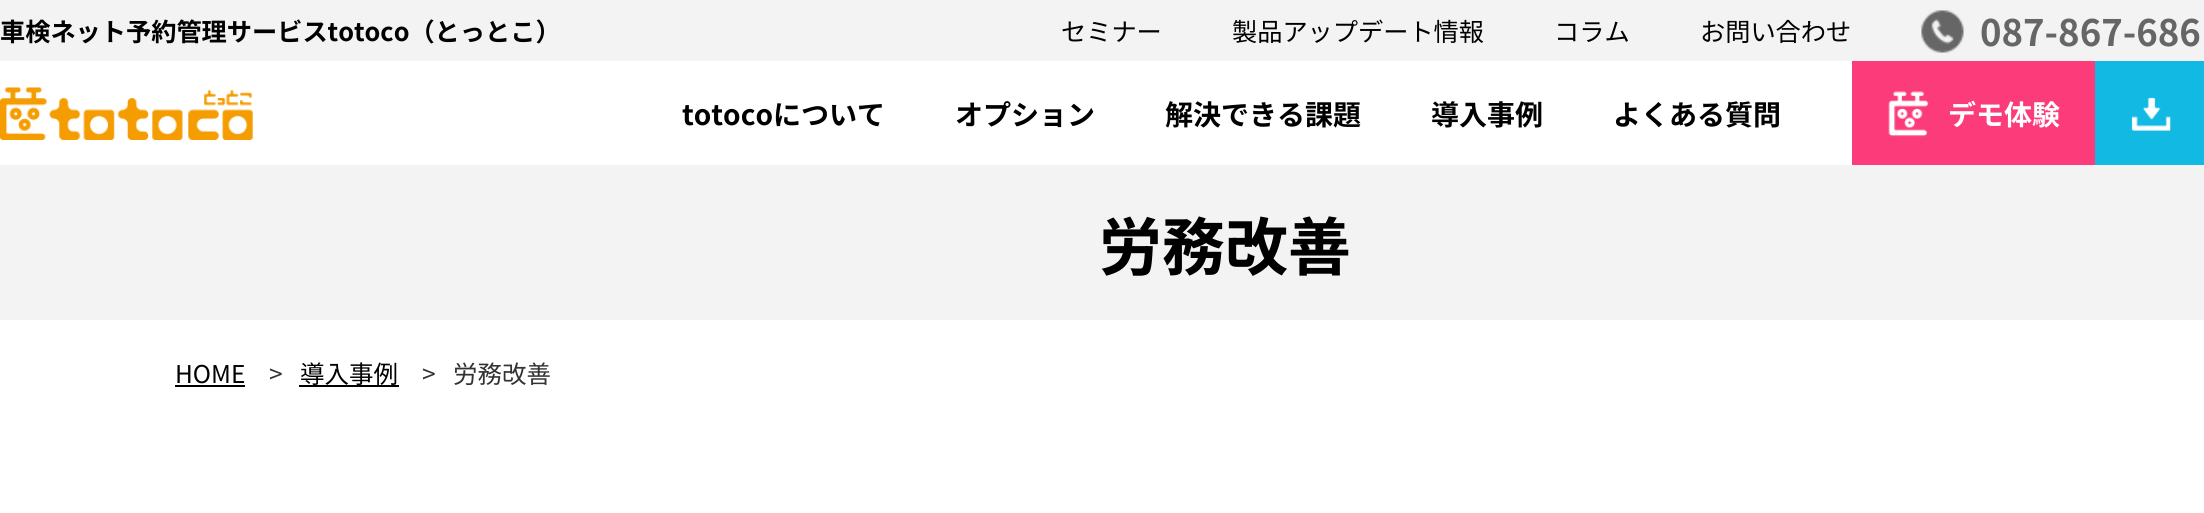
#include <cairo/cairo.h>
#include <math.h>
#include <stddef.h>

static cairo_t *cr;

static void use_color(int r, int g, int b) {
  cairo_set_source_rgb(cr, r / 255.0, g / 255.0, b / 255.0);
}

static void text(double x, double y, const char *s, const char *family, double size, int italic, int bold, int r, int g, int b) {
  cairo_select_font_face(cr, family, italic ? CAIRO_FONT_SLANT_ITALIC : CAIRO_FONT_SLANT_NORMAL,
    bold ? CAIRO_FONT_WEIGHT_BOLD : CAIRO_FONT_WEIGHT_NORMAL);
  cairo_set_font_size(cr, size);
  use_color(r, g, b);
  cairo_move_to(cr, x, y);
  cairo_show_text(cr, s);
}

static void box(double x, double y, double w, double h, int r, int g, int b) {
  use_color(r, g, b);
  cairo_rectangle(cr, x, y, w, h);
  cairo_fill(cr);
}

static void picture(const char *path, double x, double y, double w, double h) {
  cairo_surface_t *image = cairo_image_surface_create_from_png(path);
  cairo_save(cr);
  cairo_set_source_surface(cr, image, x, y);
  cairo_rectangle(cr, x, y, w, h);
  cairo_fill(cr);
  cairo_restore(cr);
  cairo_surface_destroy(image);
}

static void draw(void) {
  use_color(255, 255, 255);
  cairo_paint(cr);
  box(0, 0, 2204, 61, 243, 243, 243);
  picture("img_01.png", 1921, 10, 43, 43);
  picture("img_02.png", 0, 87, 253, 53);
  box(1852, 61, 243, 104, 251, 59, 122);
  picture("img_03.png", 1888, 91, 41, 46);
  box(2095, 61, 109, 104, 18, 185, 226);
  picture("img_04.png", 2131, 97, 40, 34);
  box(0, 165, 2204, 155, 243, 243, 243);
  box(175, 385, 70, 2, 0, 0, 0);
  box(299, 385, 100, 2, 0, 0, 0);
  text(0, 41, "車検ネット予約管理サービスtotoco（とっとこ）", "Noto Sans JP", 25.2, 0, 1, 0, 0, 0);
  text(1061, 41, "セミナー", "Noto Sans JP", 25.2, 0, 0, 0, 0, 0);
  text(1232, 41, "製品アップデート情報", "Noto Sans JP", 25.2, 0, 0, 0, 0, 0);
  text(1554, 41, "コラム", "Noto Sans JP", 25.2, 0, 0, 0, 0, 0);
  text(1700, 41, "お問い合わせ", "Noto Sans JP", 25.2, 0, 0, 0, 0, 0);
  text(1980, 46, "087-867-686", "Noto Sans JP", 36.5, 0, 1, 102, 102, 102);
  text(682, 125, "totocoについて", "Noto Sans JP", 28, 0, 1, 0, 0, 0);
  text(955, 125, "オプション", "Noto Sans JP", 28, 0, 1, 0, 0, 0);
  text(1165, 125, "解決できる課題", "Noto Sans JP", 28, 0, 1, 0, 0, 0);
  text(1431, 125, "導入事例", "Noto Sans JP", 28, 0, 1, 0, 0, 0);
  text(1613, 125, "よくある質問", "Noto Sans JP", 28, 0, 1, 0, 0, 0);
  text(1948, 125, "デモ体験", "Noto Sans JP", 28, 0, 1, 255, 255, 255);
  text(1099, 270, "労務改善", "Noto Sans JP", 63, 0, 1, 0, 0, 0);
  text(175, 383, "HOME", "Noto Sans JP", 24.5, 0, 0, 0, 0, 0);
  text(269, 383, ">", "Noto Sans JP", 24.5, 0, 0, 51, 51, 51);
  text(300, 383, "導入事例", "Noto Sans JP", 24.5, 0, 0, 0, 0, 0);
  text(422, 383, ">", "Noto Sans JP", 24.5, 0, 0, 51, 51, 51);
  text(453, 383, "労務改善", "Noto Sans JP", 24.5, 0, 0, 51, 51, 51);
}

int main(void) {
  cairo_surface_t *surface = cairo_image_surface_create(CAIRO_FORMAT_RGB24, 2204, 513);
  cr = cairo_create(surface);
  cairo_font_options_t *options = cairo_font_options_create();
  cairo_font_options_set_hint_metrics(options, CAIRO_HINT_METRICS_OFF);
  cairo_font_options_set_hint_style(options, CAIRO_HINT_STYLE_NONE);
  cairo_set_font_options(cr, options);
  cairo_set_miter_limit(cr, 4);
  draw();
  cairo_surface_write_to_png(surface, "out.png");
  cairo_font_options_destroy(options);
  cairo_destroy(cr);
  cairo_surface_destroy(surface);
  return 0;
}
